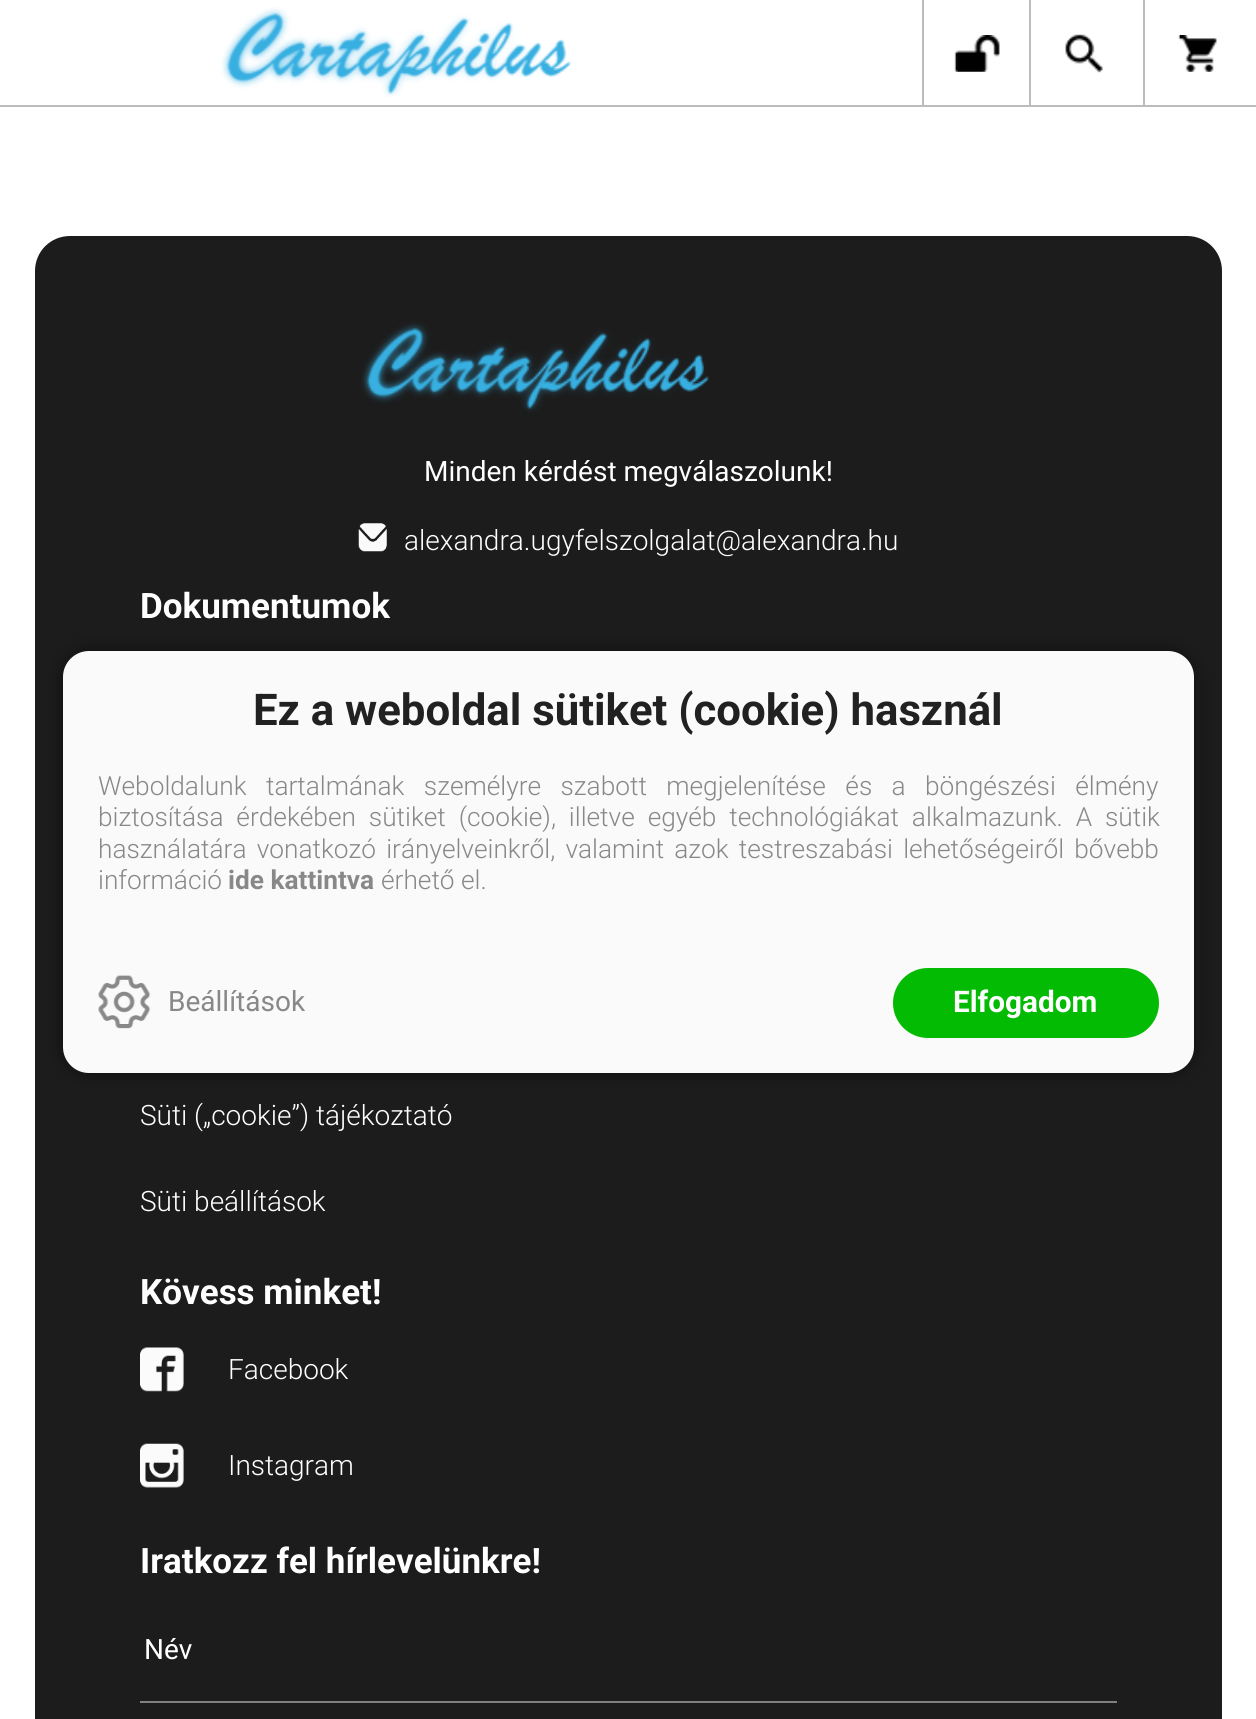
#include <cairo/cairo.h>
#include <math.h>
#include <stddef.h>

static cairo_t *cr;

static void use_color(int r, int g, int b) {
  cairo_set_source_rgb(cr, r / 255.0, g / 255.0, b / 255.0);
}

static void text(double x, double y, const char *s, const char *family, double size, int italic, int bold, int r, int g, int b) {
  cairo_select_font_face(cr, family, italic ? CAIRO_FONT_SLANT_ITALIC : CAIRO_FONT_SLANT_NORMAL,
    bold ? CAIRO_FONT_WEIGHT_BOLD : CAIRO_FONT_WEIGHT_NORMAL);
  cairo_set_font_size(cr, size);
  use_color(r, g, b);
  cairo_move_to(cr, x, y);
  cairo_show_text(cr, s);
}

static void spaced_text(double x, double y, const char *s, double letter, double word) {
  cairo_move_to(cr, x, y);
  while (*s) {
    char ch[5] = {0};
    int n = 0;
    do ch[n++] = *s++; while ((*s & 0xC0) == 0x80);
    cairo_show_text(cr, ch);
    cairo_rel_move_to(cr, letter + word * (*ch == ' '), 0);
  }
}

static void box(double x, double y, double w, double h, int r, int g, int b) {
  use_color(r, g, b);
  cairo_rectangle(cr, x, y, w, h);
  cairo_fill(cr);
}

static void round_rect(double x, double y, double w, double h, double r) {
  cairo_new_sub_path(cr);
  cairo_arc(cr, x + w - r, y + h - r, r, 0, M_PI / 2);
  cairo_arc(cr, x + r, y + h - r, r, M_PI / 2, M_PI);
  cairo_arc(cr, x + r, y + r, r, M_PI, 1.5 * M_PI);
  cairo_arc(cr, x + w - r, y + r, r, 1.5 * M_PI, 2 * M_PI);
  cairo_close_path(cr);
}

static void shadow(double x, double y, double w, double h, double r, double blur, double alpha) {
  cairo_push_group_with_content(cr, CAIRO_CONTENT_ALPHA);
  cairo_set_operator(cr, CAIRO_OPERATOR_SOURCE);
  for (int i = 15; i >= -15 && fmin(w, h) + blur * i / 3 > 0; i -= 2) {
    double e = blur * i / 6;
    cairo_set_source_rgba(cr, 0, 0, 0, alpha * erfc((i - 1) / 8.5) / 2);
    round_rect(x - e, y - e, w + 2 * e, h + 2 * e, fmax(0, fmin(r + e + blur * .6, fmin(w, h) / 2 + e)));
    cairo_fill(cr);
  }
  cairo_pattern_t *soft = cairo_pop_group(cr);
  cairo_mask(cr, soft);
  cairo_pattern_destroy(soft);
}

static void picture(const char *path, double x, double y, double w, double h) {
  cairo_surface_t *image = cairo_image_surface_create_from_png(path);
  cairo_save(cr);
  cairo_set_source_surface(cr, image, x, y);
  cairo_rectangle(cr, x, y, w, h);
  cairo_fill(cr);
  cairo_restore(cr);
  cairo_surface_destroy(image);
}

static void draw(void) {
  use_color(255, 255, 255);
  cairo_paint(cr);
  box(0, 105, 1256, 2, 188, 188, 188);
  picture("img_01.png", 221, 7, 350, 90);
  box(922, 0, 2, 105, 188, 188, 188);
  picture("img_02.png", 954, 35, 46, 37);
  box(1029, 0, 2, 105, 188, 188, 188);
  picture("img_03.png", 1065, 34, 38, 39);
  box(1143, 0, 2, 105, 188, 188, 188);
  picture("img_04.png", 1178, 35, 39, 37);
  use_color(28, 28, 28);
  cairo_new_path(cr);
  cairo_move_to(cr, 70, 236);
  cairo_line_to(cr, 1187, 236);
  cairo_curve_to(cr, 1206.5, 236, 1222, 251.5, 1222, 271);
  cairo_line_to(cr, 1222, 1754);
  cairo_line_to(cr, 35, 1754);
  cairo_line_to(cr, 35, 271);
  cairo_curve_to(cr, 35, 251.5, 50.5, 236, 70, 236);
  cairo_close_path(cr);
  cairo_fill(cr);
  picture("img_05.png", 361, 322, 348, 90);
  picture("img_06.png", 358, 523, 29, 29);
  picture("img_07.png", 140, 1347, 44, 45);
  picture("img_08.png", 140, 1443, 44, 45);
  box(140, 1701, 977, 2, 128, 128, 128);
  use_color(0, 0, 0);
  shadow(63, 651, 1131, 422, 26, 9, 0.5);
  use_color(250, 250, 250);
  round_rect(63, 651, 1131, 422, 26);
  cairo_fill(cr);
  picture("img_09.png", 98, 975, 53, 54);
  use_color(2, 187, 2);
  round_rect(893, 968, 266, 70, 35);
  cairo_fill(cr);
  text(424, 481, "Minden kérdést megválaszolunk!", "Roboto", 28, 0, 0, 255, 255, 255);
  text(404, 550, "alexandra.ugyfelszolgalat@alexandra.hu", "Roboto Light", 28, 0, 0, 255, 255, 255);
  text(140, 618, "Dokumentumok", "Roboto", 35, 0, 1, 255, 255, 255);
  text(140, 1125, "Süti („cookie”) tájékoztató", "Roboto Light", 28, 0, 0, 255, 255, 255);
  text(140, 1211, "Süti beállítások", "Roboto Light", 28, 0, 0, 255, 255, 255);
  text(140, 1304, "Kövess minket!", "Roboto", 35, 0, 1, 255, 255, 255);
  text(228, 1379, "Facebook", "Roboto Light", 28, 0, 0, 255, 255, 255);
  text(228, 1475, "Instagram", "Roboto Light", 28, 0, 0, 255, 255, 255);
  text(140, 1573, "Iratkozz fel hírlevelünkre!", "Roboto", 35, 0, 1, 255, 255, 255);
  text(144, 1659, "Név", "Roboto", 28, 0, 0, 255, 255, 255);
  text(253, 725, "Ez a weboldal sütiket (cookie) használ", "Roboto", 43.75, 0, 1, 33, 33, 33);
  cairo_select_font_face(cr, "Roboto Light", CAIRO_FONT_SLANT_NORMAL, CAIRO_FONT_WEIGHT_NORMAL);
  cairo_set_font_size(cr, 26.25);
  use_color(136, 136, 136);
  spaced_text(98, 795, "Weboldalunk tartalmának személyre szabott megjelenítése és a böngészési élmény", 0, 13);
  spaced_text(98, 826, "biztosítása érdekében sütiket (cookie), illetve egyéb technológiákat alkalmazunk. A sütik", 0, 6.5);
  spaced_text(98, 858, "használatára vonatkozó irányelveinkről, valamint azok testreszabási lehetőségeiről bővebb", 0, 3.75);
  text(98, 889, "információ", "Roboto Light", 26.25, 0, 0, 136, 136, 136);
  text(228, 889, "ide kattintva", "Roboto", 26.25, 0, 1, 136, 136, 136);
  text(381, 889, "érhető el.", "Roboto Light", 26.25, 0, 0, 136, 136, 136);
  text(168, 1011, "Beállítások", "Roboto", 28, 0, 0, 136, 136, 136);
  text(953, 1012, "Elfogadom", "Roboto", 29.75, 0, 1, 255, 255, 255);
}

int main(void) {
  cairo_surface_t *surface = cairo_image_surface_create(CAIRO_FORMAT_RGB24, 1256, 1719);
  cr = cairo_create(surface);
  cairo_font_options_t *options = cairo_font_options_create();
  cairo_font_options_set_hint_metrics(options, CAIRO_HINT_METRICS_OFF);
  cairo_font_options_set_hint_style(options, CAIRO_HINT_STYLE_NONE);
  cairo_set_font_options(cr, options);
  cairo_set_miter_limit(cr, 4);
  draw();
  cairo_surface_write_to_png(surface, "out.png");
  cairo_font_options_destroy(options);
  cairo_destroy(cr);
  cairo_surface_destroy(surface);
  return 0;
}
